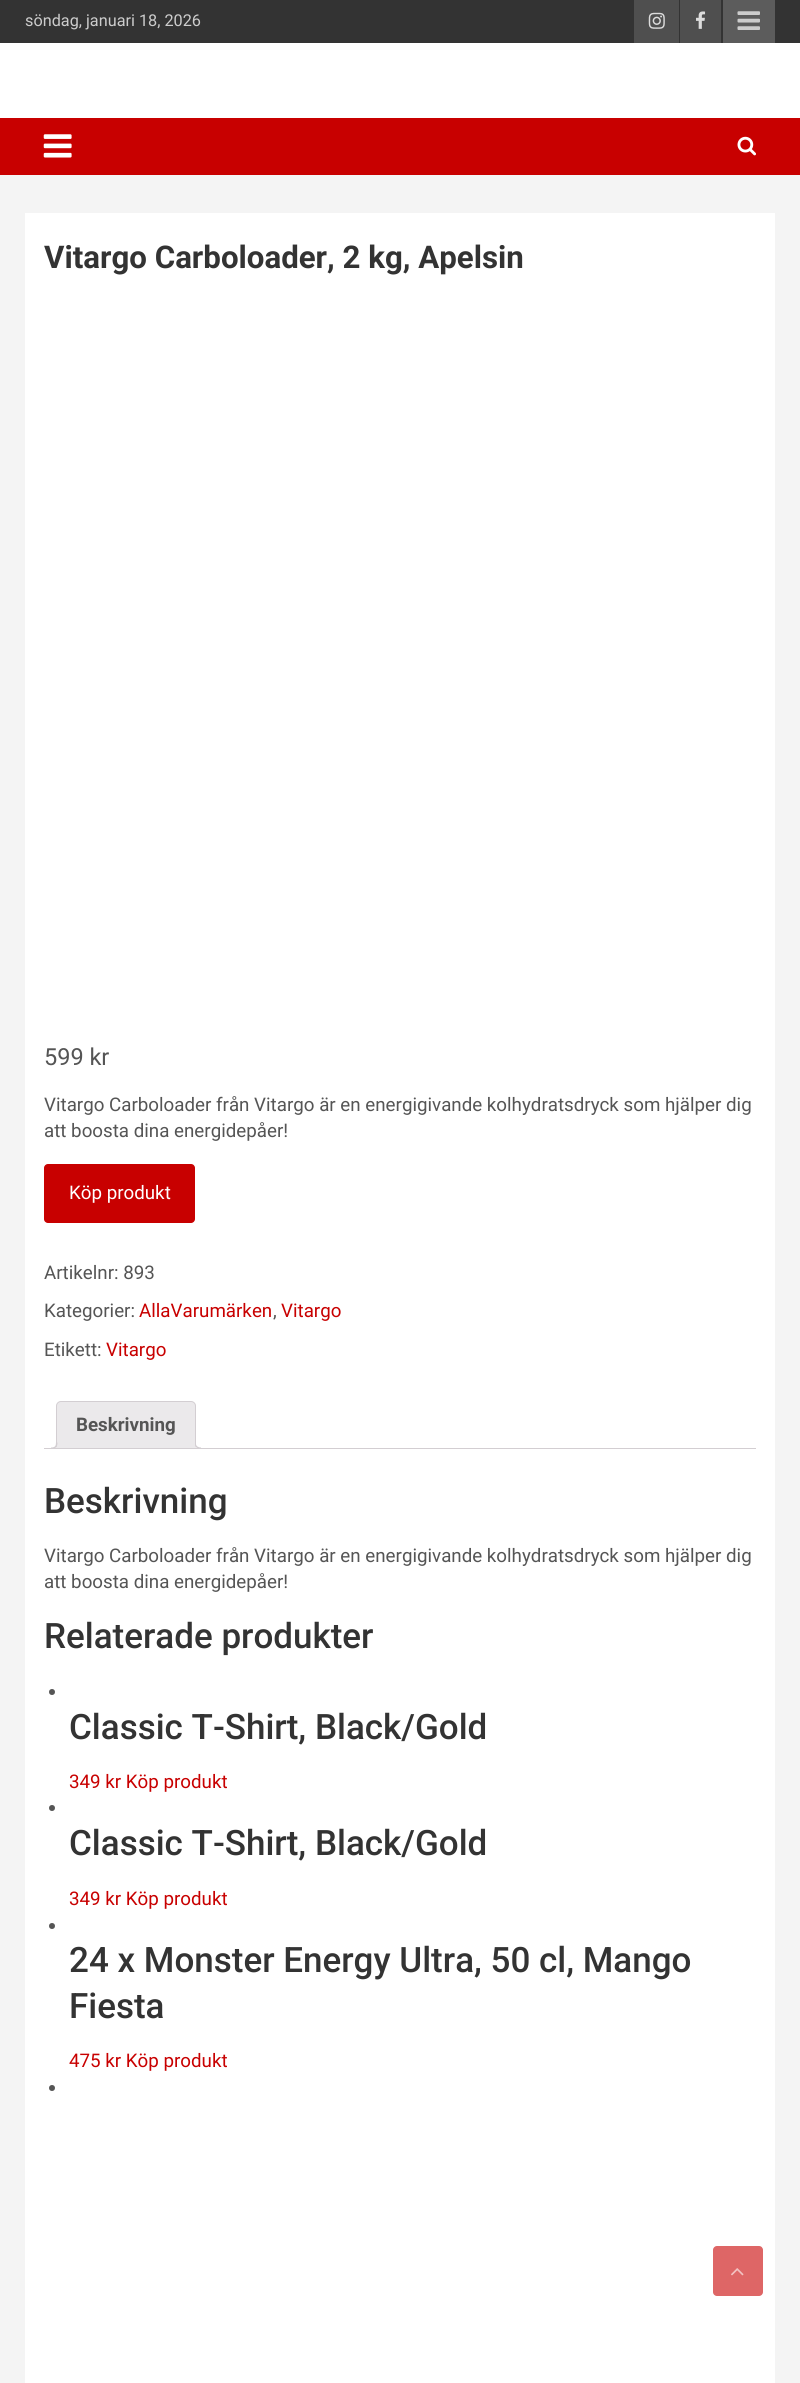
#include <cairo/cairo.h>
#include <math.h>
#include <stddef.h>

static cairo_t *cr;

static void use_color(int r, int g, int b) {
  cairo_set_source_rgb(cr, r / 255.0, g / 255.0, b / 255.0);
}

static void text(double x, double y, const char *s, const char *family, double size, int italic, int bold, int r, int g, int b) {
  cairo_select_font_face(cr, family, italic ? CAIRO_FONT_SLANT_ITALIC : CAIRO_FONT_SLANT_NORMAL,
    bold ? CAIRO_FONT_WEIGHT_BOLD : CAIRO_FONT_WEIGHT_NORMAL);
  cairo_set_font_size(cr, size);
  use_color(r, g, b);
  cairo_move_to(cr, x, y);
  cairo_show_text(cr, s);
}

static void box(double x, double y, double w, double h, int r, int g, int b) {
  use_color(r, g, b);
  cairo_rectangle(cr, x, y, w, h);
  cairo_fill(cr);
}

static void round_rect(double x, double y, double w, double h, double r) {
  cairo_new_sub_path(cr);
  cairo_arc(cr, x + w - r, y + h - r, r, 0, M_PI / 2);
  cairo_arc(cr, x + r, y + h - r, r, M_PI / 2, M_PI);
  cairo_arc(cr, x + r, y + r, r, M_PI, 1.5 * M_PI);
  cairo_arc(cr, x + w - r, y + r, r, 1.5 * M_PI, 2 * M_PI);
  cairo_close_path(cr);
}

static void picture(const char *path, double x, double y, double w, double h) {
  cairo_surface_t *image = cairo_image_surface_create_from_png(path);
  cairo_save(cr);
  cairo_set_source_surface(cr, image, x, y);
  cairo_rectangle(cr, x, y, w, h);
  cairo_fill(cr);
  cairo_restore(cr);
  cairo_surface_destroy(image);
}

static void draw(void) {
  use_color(244, 244, 244);
  cairo_paint(cr);
  box(0, 0, 800, 43, 51, 51, 51);
  box(634, 0, 45, 43, 79, 79, 79);
  picture("img_01.png", 648, 12, 17, 17);
  box(680, 0, 41, 43, 79, 79, 79);
  picture("img_02.png", 696, 11, 10, 18);
  box(723, 0, 52, 43, 92, 92, 92);
  picture("img_03.png", 737, 11, 23, 19);
  box(0, 43, 800, 75, 255, 255, 255);
  box(0, 118, 800, 57, 200, 0, 0);
  picture("img_04.png", 43, 134, 29, 24);
  picture("img_05.png", 737, 136, 19, 20);
  box(25, 213, 750, 2170, 255, 255, 255);
  use_color(200, 0, 0);
  round_rect(44, 1164, 151, 59, 4);
  cairo_fill(cr);
  use_color(235, 233, 235);
  cairo_new_path(cr);
  cairo_move_to(cr, 61, 1401.5);
  cairo_line_to(cr, 191, 1401.5);
  cairo_curve_to(cr, 193.5, 1401.5, 195.5, 1403.5, 195.5, 1406);
  cairo_line_to(cr, 195.5, 1448.5);
  cairo_line_to(cr, 56.5, 1448.5);
  cairo_line_to(cr, 56.5, 1406);
  cairo_curve_to(cr, 56.5, 1403.5, 58.5, 1401.5, 61, 1401.5);
  cairo_close_path(cr);
  cairo_fill_preserve(cr);
  use_color(211, 206, 210);
  cairo_set_line_width(cr, 1);
  cairo_stroke(cr);
  cairo_save(cr);
  cairo_rectangle(cr, 44, 1401, 712, 48);
  cairo_clip(cr);
  use_color(235, 233, 235);
  cairo_new_path(cr);
  cairo_move_to(cr, 54, 1448.5);
  cairo_line_to(cr, 54, 1451);
  cairo_curve_to(cr, 58, 1451, 60, 1449, 60, 1445);
  cairo_line_to(cr, 57.5, 1445);
  cairo_curve_to(cr, 57, 1446.5, 55.5, 1448, 54, 1448.5);
  cairo_close_path(cr);
  cairo_fill(cr);
  cairo_restore(cr);
  cairo_set_fill_rule(cr, CAIRO_FILL_RULE_EVEN_ODD);
  cairo_new_path(cr);
  cairo_move_to(cr, 51, 1442.5);
  cairo_line_to(cr, 57.5, 1442.5);
  cairo_curve_to(cr, 57.5, 1447, 55.5, 1449, 51, 1449);
  cairo_close_path(cr);
  cairo_move_to(cr, 51, 1442.5);
  cairo_line_to(cr, 56, 1442.5);
  cairo_curve_to(cr, 56, 1446, 55, 1447.5, 51, 1447.5);
  cairo_close_path(cr);
  cairo_fill(cr);
  cairo_save(cr);
  cairo_set_fill_rule(cr, CAIRO_FILL_RULE_WINDING);
  cairo_rectangle(cr, 44, 1401, 712, 48);
  cairo_clip(cr);
  use_color(235, 233, 235);
  cairo_new_path(cr);
  cairo_move_to(cr, 193, 1445);
  cairo_curve_to(cr, 193, 1449, 195, 1451, 199, 1451);
  cairo_line_to(cr, 199, 1448.5);
  cairo_curve_to(cr, 197, 1448.5, 195.5, 1447, 195, 1445);
  cairo_close_path(cr);
  cairo_fill(cr);
  cairo_restore(cr);
  cairo_new_path(cr);
  cairo_move_to(cr, 195, 1442.5);
  cairo_line_to(cr, 201, 1442.5);
  cairo_line_to(cr, 201, 1449);
  cairo_curve_to(cr, 198, 1449, 195, 1447.5, 195, 1444);
  cairo_close_path(cr);
  cairo_move_to(cr, 196, 1442.5);
  cairo_line_to(cr, 201, 1442.5);
  cairo_line_to(cr, 201, 1447.5);
  cairo_curve_to(cr, 199, 1447.5, 196, 1446.5, 196, 1444);
  cairo_close_path(cr);
  cairo_fill(cr);
  box(44, 1448, 712, 1, 211, 206, 210);
  use_color(85, 85, 85);
  cairo_arc(cr, 52, 1692, 3, 0, 2 * M_PI);
  cairo_fill(cr);
  cairo_arc(cr, 52, 1808, 3, 0, 2 * M_PI);
  cairo_fill(cr);
  cairo_arc(cr, 52, 1926, 3, 0, 2 * M_PI);
  cairo_fill(cr);
  cairo_arc(cr, 52, 2088, 3, 0, 2 * M_PI);
  cairo_fill(cr);
  use_color(222, 102, 102);
  round_rect(713, 2246, 50, 50, 4);
  cairo_fill(cr);
  picture("img_06.png", 731, 2268, 13, 8);
  text(25, 26, "söndag, januari 18, 2026", "Roboto", 16.25, 0, 0, 204, 204, 204);
  text(44, 268, "Vitargo Carboloader, 2 kg, Apelsin", "Roboto", 31.25, 0, 1, 51, 51, 51);
  text(44, 1065, "599 kr", "Roboto", 23.5, 0, 0, 85, 85, 85);
  text(44, 1111, "Vitargo Carboloader från Vitargo är en energigivande kolhydratsdryck som hjälper dig", "Roboto", 18.75, 0, 0, 85, 85, 85);
  text(44, 1137, "att boosta dina energidepåer!", "Roboto", 18.75, 0, 0, 85, 85, 85);
  text(69, 1199, "Köp produkt", "Roboto", 18.75, 0, 0, 255, 255, 255);
  text(44, 1279, "Artikelnr: 893", "Roboto", 18.75, 0, 0, 85, 85, 85);
  text(44, 1317, "Kategorier:", "Roboto", 18.75, 0, 0, 85, 85, 85);
  text(139, 1317, "AllaVarumärken", "Roboto", 18.75, 0, 0, 200, 0, 0);
  text(273, 1317, ",", "Roboto", 18.75, 0, 0, 85, 85, 85);
  text(281, 1317, "Vitargo", "Roboto", 18.75, 0, 0, 200, 0, 0);
  text(44, 1356, "Etikett:", "Roboto", 18.75, 0, 0, 85, 85, 85);
  text(106, 1356, "Vitargo", "Roboto", 18.75, 0, 0, 200, 0, 0);
  text(76, 1431, "Beskrivning", "Roboto", 18.75, 0, 1, 85, 85, 85);
  text(44, 1513, "Beskrivning", "Roboto Medium", 35, 0, 0, 51, 51, 51);
  text(44, 1562, "Vitargo Carboloader från Vitargo är en energigivande kolhydratsdryck som hjälper dig", "Roboto", 18.75, 0, 0, 85, 85, 85);
  text(44, 1588, "att boosta dina energidepåer!", "Roboto", 18.75, 0, 0, 85, 85, 85);
  text(44, 1648, "Relaterade produkter", "Roboto Medium", 35, 0, 0, 51, 51, 51);
  text(69, 1739, "Classic T-Shirt, Black/Gold", "Roboto Medium", 35, 0, 0, 51, 51, 51);
  text(69, 1788, "349 kr Köp produkt", "Roboto", 18.75, 0, 0, 200, 0, 0);
  text(69, 1855, "Classic T-Shirt, Black/Gold", "Roboto Medium", 35, 0, 0, 51, 51, 51);
  text(69, 1905, "349 kr Köp produkt", "Roboto", 18.75, 0, 0, 200, 0, 0);
  text(69, 1972, "24 x Monster Energy Ultra, 50 cl, Mango", "Roboto Medium", 35, 0, 0, 51, 51, 51);
  text(69, 2018, "Fiesta", "Roboto Medium", 35, 0, 0, 51, 51, 51);
  text(69, 2067, "475 kr Köp produkt", "Roboto", 18.75, 0, 0, 200, 0, 0);
}

int main(void) {
  cairo_surface_t *surface = cairo_image_surface_create(CAIRO_FORMAT_RGB24, 800, 2383);
  cr = cairo_create(surface);
  cairo_font_options_t *options = cairo_font_options_create();
  cairo_font_options_set_hint_metrics(options, CAIRO_HINT_METRICS_OFF);
  cairo_font_options_set_hint_style(options, CAIRO_HINT_STYLE_NONE);
  cairo_set_font_options(cr, options);
  cairo_set_miter_limit(cr, 4);
  draw();
  cairo_surface_write_to_png(surface, "out.png");
  cairo_font_options_destroy(options);
  cairo_destroy(cr);
  cairo_surface_destroy(surface);
  return 0;
}
